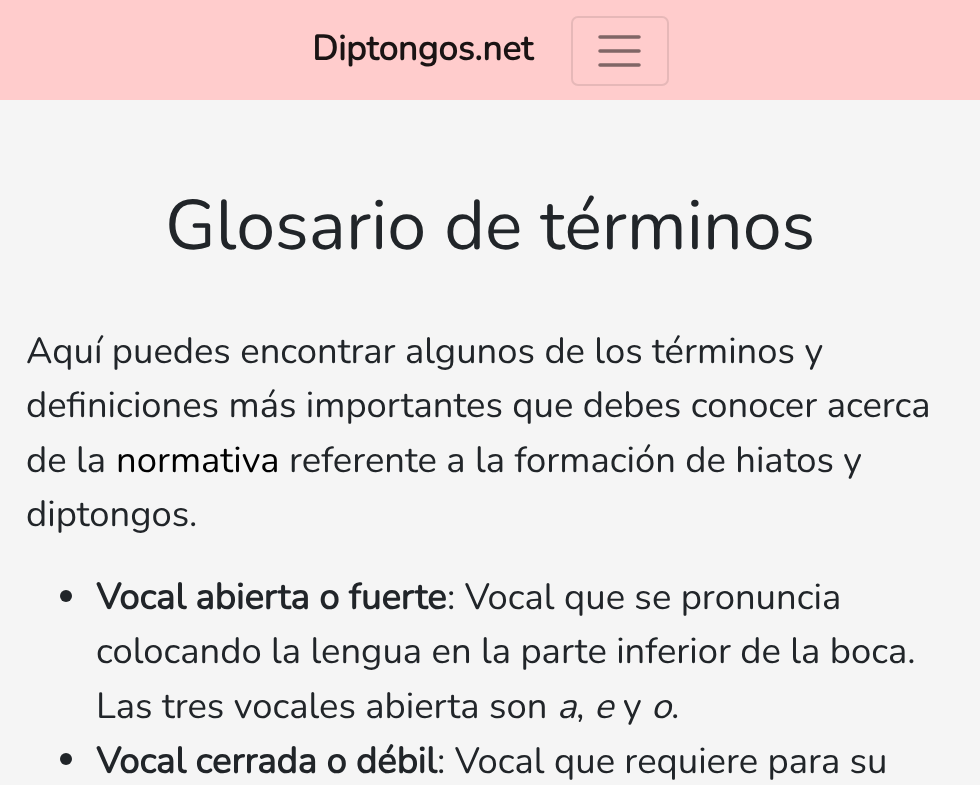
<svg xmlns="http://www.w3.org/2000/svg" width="980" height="785">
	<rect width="100%" height="100%" fill="#F5F5F5" />
	<rect x="0" y="0" width="980" height="100" fill="#FFCCCC" />
	<text x="312" y="60" font-family="Nunito" font-size="35" font-weight="700" fill="#1A1414">Diptongos.net</text>
	<rect x="572" y="17" width="96" height="68" rx="6" fill="none" stroke="#E6B8B8" stroke-width="2" />
	<path d="M600 37H639M600 51H639M600 65H639" fill="none" stroke="#806666" stroke-width="3.5" stroke-linecap="round" />
	<text x="165" y="249" font-family="Nunito" font-size="70" font-weight="200" fill="#212529">Glosario de términos</text>
	<g font-family="Nunito" font-size="36.4" font-weight="200" fill="#212529">
		<text x="26" y="363">Aquí puedes encontrar algunos de los términos y</text>
		<text x="26" y="417">definiciones más importantes que debes conocer acerca</text>
		<text x="26" y="472">de la</text>
	</g>
	<text x="116" y="472" font-family="Nunito" font-size="36.4" font-weight="200" fill="#000000">normativa</text>
	<g font-family="Nunito" font-size="36.4" font-weight="200" fill="#212529">
		<text x="289" y="472">referente a la formación de hiatos y</text>
		<text x="26" y="526">diptongos.</text>
	</g>
	<circle cx="66" cy="596" r="6" fill="#212529" />
	<text x="96" y="609" font-family="Nunito" font-size="36.4" font-weight="700" fill="#212529">Vocal abierta o fuerte</text>
	<g font-family="Nunito" font-size="36.4" font-weight="200" fill="#212529">
		<text x="447" y="609">: Vocal que se pronuncia</text>
		<text x="96" y="663">colocando la lengua en la parte inferior de la boca.</text>
		<text x="96" y="718">Las tres vocales abierta son</text>
	</g>
	<text x="557" y="718" font-family="Nunito" font-size="36.4" font-weight="200" font-style="italic" fill="#212529">a</text>
	<text x="576" y="718" font-family="Nunito" font-size="36.4" font-weight="200" fill="#212529">,</text>
	<text x="594" y="718" font-family="Nunito" font-size="36.4" font-weight="200" font-style="italic" fill="#212529">e</text>
	<text x="623" y="718" font-family="Nunito" font-size="36.4" font-weight="200" fill="#212529">y</text>
	<text x="651" y="718" font-family="Nunito" font-size="36.4" font-weight="200" font-style="italic" fill="#212529">o</text>
	<text x="671" y="718" font-family="Nunito" font-size="36.4" font-weight="200" fill="#212529">.</text>
	<circle cx="66" cy="759" r="6" fill="#212529" />
	<text x="96" y="773" font-family="Nunito" font-size="36.4" font-weight="700" fill="#212529">Vocal cerrada o débil</text>
	<text x="437" y="773" font-family="Nunito" font-size="36.4" font-weight="200" fill="#212529">: Vocal que requiere para su</text>
</svg>
